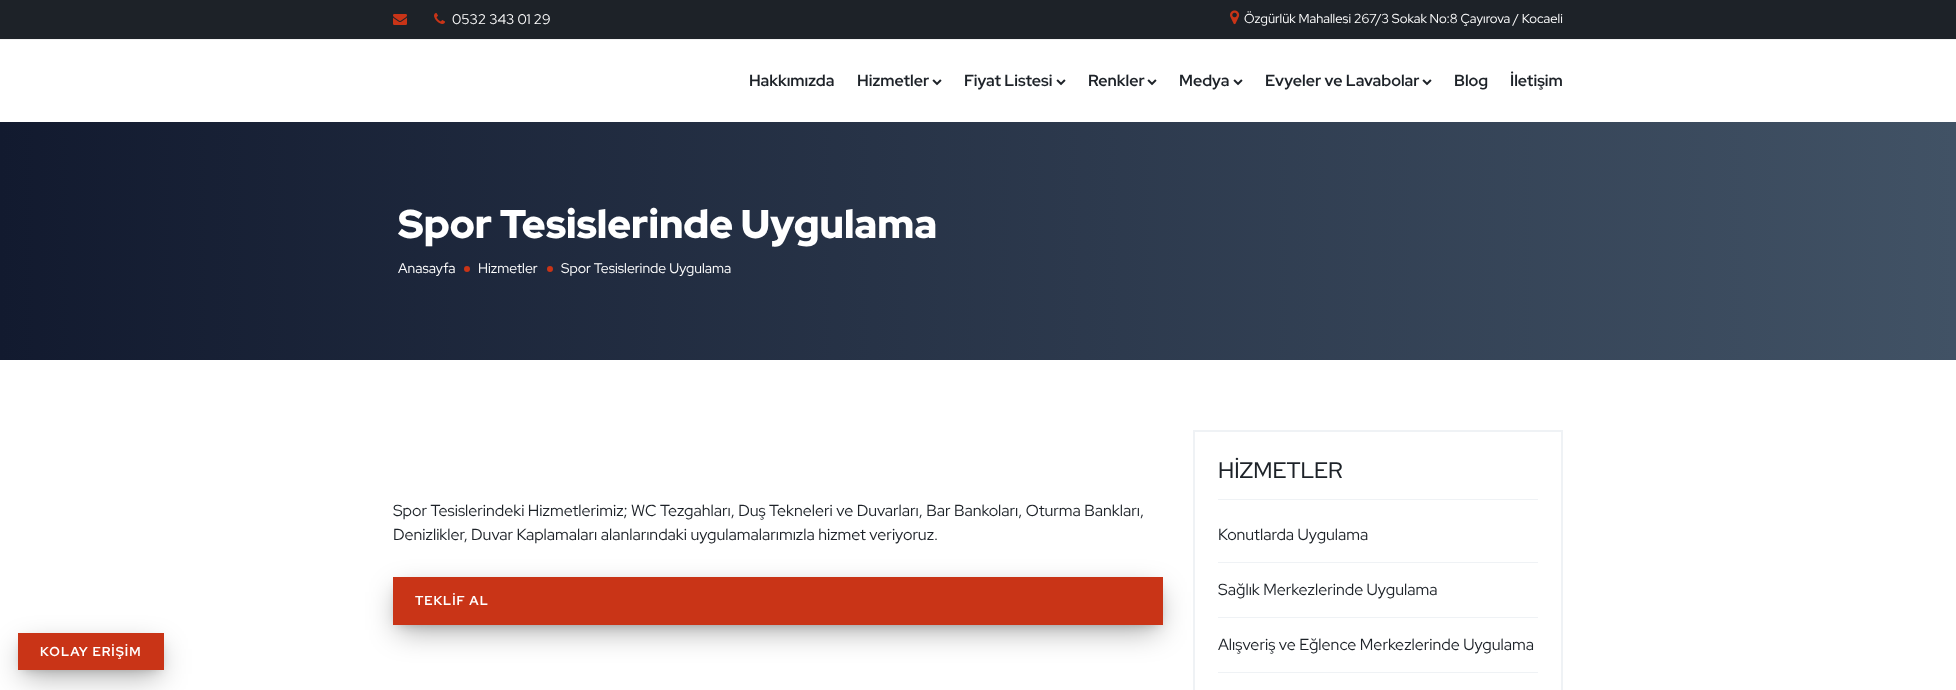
<svg xmlns="http://www.w3.org/2000/svg" width="1956" height="690">
	<defs>
		<linearGradient id="g1" gradientUnits="userSpaceOnUse" x1="0" y1="180" x2="1956" y2="180"><stop offset="0" stop-color="#121A2F" /><stop offset="1" stop-color="#415265" /></linearGradient>
	</defs>
	<rect width="100%" height="100%" fill="#FFFFFF" />
	<rect x="0" y="0" width="1956" height="39" fill="#1D2228" />
	<rect x="0" y="39" width="1956" height="1" fill="#F2F2F2" />
	<image x="393" y="14" width="14" height="11" href="assets/img1.png" />
	<image x="434" y="13" width="11" height="11" href="assets/img2.png" />
	<text x="452" y="24" font-family="Red Hat Display" font-size="14" fill="#FFFFFF">0532 343 01 29</text>
	<image x="1230" y="10" width="10" height="15" href="assets/img3.png" />
	<text x="1244" y="23" font-family="Red Hat Display" font-size="13" fill="#FFFFFF">Özgürlük Mahallesi 267/3 Sokak No:8 Çayırova / Kocaeli</text>
	<g font-family="Red Hat Display" font-size="16" font-weight="700" fill="#1D2228">
		<text x="749" y="86">Hakkımızda</text>
		<text x="857" y="86">Hizmetler</text>
	</g>
	<image x="932" y="79" width="10" height="7" href="assets/img4.png" />
	<text x="964" y="86" font-family="Red Hat Display" font-size="16" font-weight="700" fill="#1D2228">Fiyat Listesi</text>
	<image x="1056" y="79" width="10" height="7" href="assets/img4.png" />
	<text x="1088" y="86" font-family="Red Hat Display" font-size="16" font-weight="700" fill="#1D2228">Renkler</text>
	<image x="1147" y="79" width="10" height="7" href="assets/img4.png" />
	<text x="1179" y="86" font-family="Red Hat Display" font-size="16" font-weight="700" fill="#1D2228">Medya</text>
	<image x="1233" y="79" width="10" height="7" href="assets/img4.png" />
	<text x="1265" y="86" font-family="Red Hat Display" font-size="16" font-weight="700" fill="#1D2228">Evyeler ve Lavabolar</text>
	<image x="1422" y="79" width="10" height="7" href="assets/img4.png" />
	<g font-family="Red Hat Display" font-size="16" font-weight="700" fill="#1D2228">
		<text x="1454" y="86">Blog</text>
		<text x="1510" y="86">İletişim</text>
	</g>
	<rect x="23" y="648" width="136" height="27" fill="#000000" fill-opacity="0.35" filter="blur(15px)" />
	<rect x="23" y="642" width="136" height="27" fill="#000000" fill-opacity="0.24" filter="blur(5.5px)" />
	<rect x="18" y="633" width="146" height="37" fill="#C93417" />
	<text x="40" y="656" font-family="Red Hat Display" font-size="13" font-weight="700" letter-spacing="1" fill="#FFFFFF">KOLAY ERİŞİM</text>
	<rect x="0" y="122" width="1956" height="238" fill="url(#g1)" />
	<text x="398" y="238" font-family="Red Hat Display" font-size="40" font-weight="900" fill="#FFFFFF">Spor Tesislerinde Uygulama</text>
	<text x="398" y="273" font-family="Red Hat Display" font-size="14" fill="#FFFFFF">Anasayfa</text>
	<circle cx="467" cy="269" r="3" fill="#C93417" />
	<text x="478" y="273" font-family="Red Hat Display" font-size="14" fill="#FFFFFF">Hizmetler</text>
	<circle cx="550" cy="269" r="3" fill="#C93417" />
	<text x="561" y="273" font-family="Red Hat Display" font-size="14" fill="#FFFFFF">Spor Tesislerinde Uygulama</text>
	<g font-family="Red Hat Display" font-size="16" fill="#1D2228">
		<text x="393" y="516">Spor Tesislerindeki Hizmetlerimiz; WC Tezgahları, Duş Tekneleri ve Duvarları, Bar Bankoları, Oturma Bankları,</text>
		<text x="393" y="540">Denizlikler, Duvar Kaplamaları alanlarındaki uygulamalarımızla hizmet veriyoruz.</text>
	</g>
	<rect x="398" y="592" width="760" height="38" fill="#000000" fill-opacity="0.35" filter="blur(15px)" />
	<rect x="398" y="586" width="760" height="38" fill="#000000" fill-opacity="0.24" filter="blur(5.5px)" />
	<rect x="393" y="577" width="770" height="48" fill="#C93417" />
	<text x="415" y="605" font-family="Red Hat Display" font-size="13" font-weight="700" letter-spacing="1" fill="#FFFFFF">TEKLİF AL</text>
	<rect x="1194" y="431" width="368" height="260" fill="none" stroke="#EFF2F5" stroke-width="2" />
	<rect x="1218" y="499" width="320" height="1" fill="#EFF2F5" />
	<text x="1218" y="478" font-family="Red Hat Display" font-size="22.5" font-weight="500" fill="#1D2228">HİZMETLER</text>
	<rect x="1218" y="562" width="320" height="1" fill="#EFF2F5" />
	<text x="1218" y="540" font-family="Red Hat Display" font-size="16" fill="#1D2228">Konutlarda Uygulama</text>
	<rect x="1218" y="617" width="320" height="1" fill="#EFF2F5" />
	<text x="1218" y="595" font-family="Red Hat Display" font-size="16" fill="#1D2228">Sağlık Merkezlerinde Uygulama</text>
	<rect x="1218" y="672" width="320" height="1" fill="#EFF2F5" />
	<text x="1218" y="650" font-family="Red Hat Display" font-size="16" fill="#1D2228">Alışveriş ve Eğlence Merkezlerinde Uygulama</text>
</svg>
